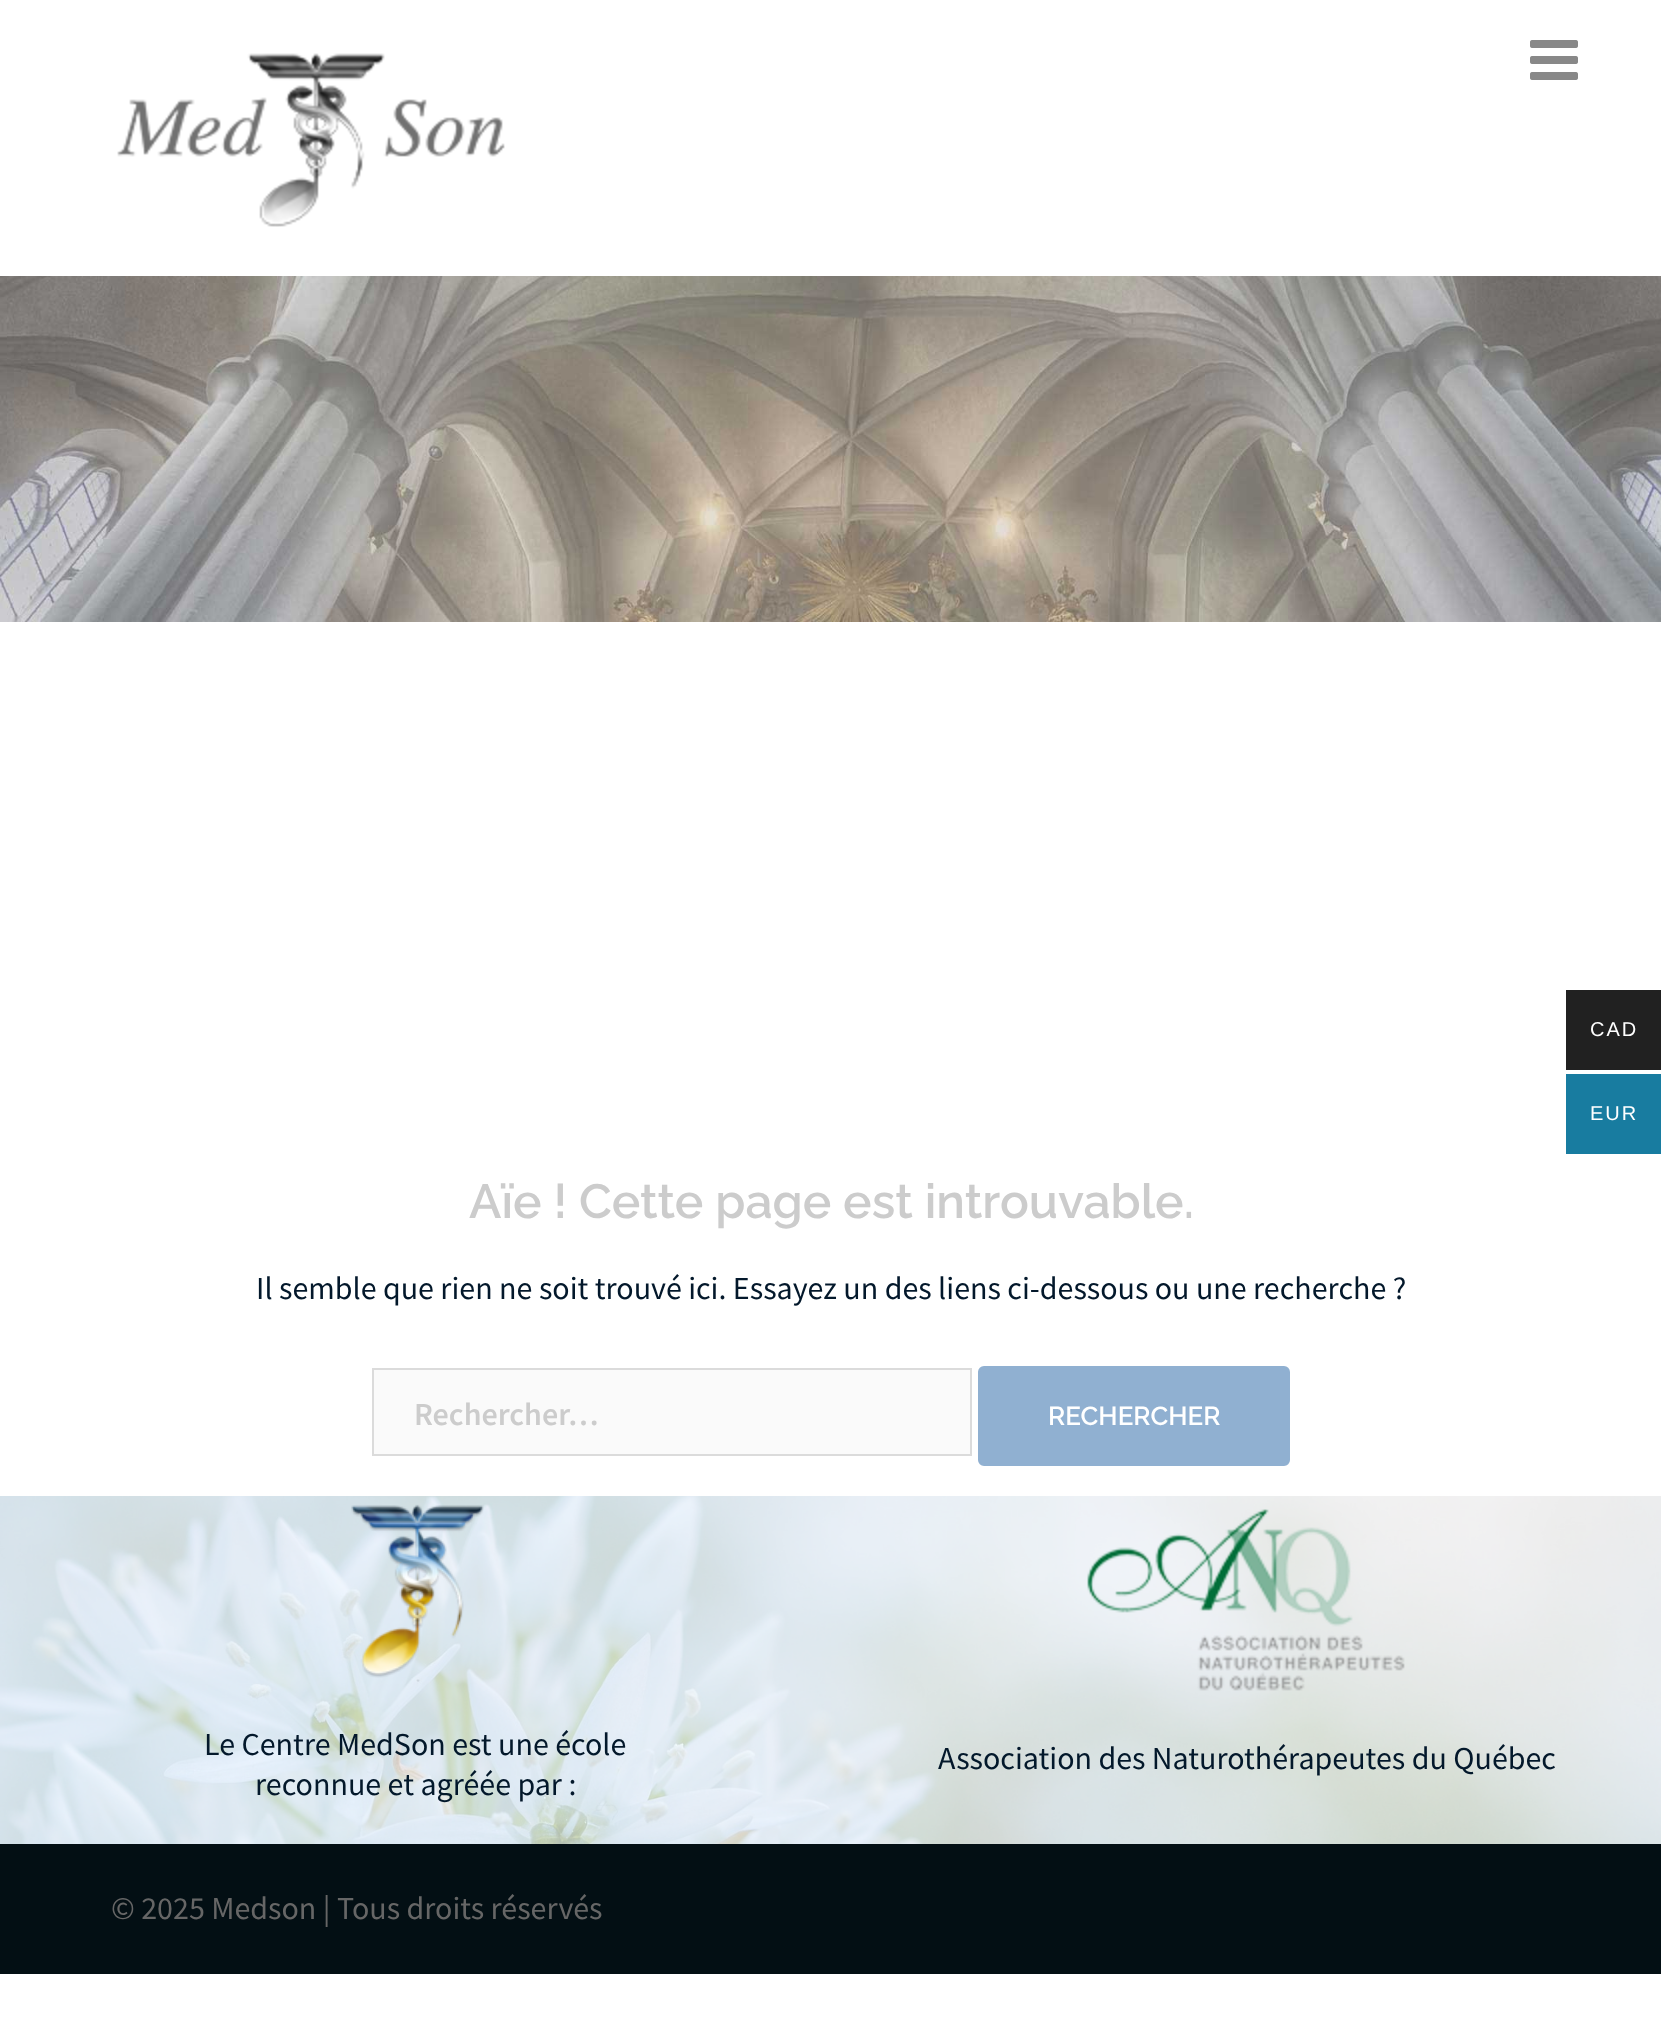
<svg xmlns="http://www.w3.org/2000/svg" width="1661" height="2039">
	<rect width="100%" height="100%" fill="#FFFFFF" />
	<rect x="1566" y="990" width="95" height="80" fill="#212121" />
	<text x="1590" y="1036" font-family="Liberation Sans" font-size="20" letter-spacing="2" fill="#FFFFFF">CAD</text>
	<rect x="1566" y="1074" width="95" height="80" fill="#187CA0" />
	<text x="1590" y="1120" font-family="Liberation Sans" font-size="20" letter-spacing="2" fill="#FFFFFF">EUR</text>
	<image x="117" y="53" width="388" height="174" href="assets/img1.png" />
	<image x="1530" y="40" width="48" height="40" href="assets/img2.png" />
	<image x="0" y="276" width="1661" height="346" href="assets/img3.png" />
	<text x="469" y="1218" font-family="Raleway" font-size="48" font-weight="600" fill="#CCCCCC">Aïe ! Cette page est introuvable.</text>
	<text x="256" y="1299" font-family="Source Sans Pro" font-size="32" fill="#03182B">Il semble que rien ne soit trouvé ici. Essayez un des liens ci-dessous ou une recherche ?</text>
	<rect x="373" y="1369" width="598" height="86" fill="#FAFAFA" stroke="#DBDBDB" stroke-width="2" />
	<text x="414" y="1425" font-family="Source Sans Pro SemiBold" font-size="32" font-weight="600" fill="#CCCCCC">Rechercher…</text>
	<rect x="979" y="1367" width="310" height="98" rx="5" fill="#90B0D1" stroke="#90B0D1" stroke-width="2" />
	<text x="1048" y="1425" font-family="Raleway" font-size="26" font-weight="600" fill="#FFFFFF">RECHERCHER</text>
	<image x="0" y="1496" width="1661" height="348" href="assets/img4.png" />
	<image x="351" y="1504" width="133" height="174" href="assets/img5.png" />
	<g font-family="Source Sans Pro" font-size="32" fill="#03182B">
		<text x="204" y="1755">Le Centre MedSon est une école</text>
		<text x="255" y="1795">reconnue et agréée par :</text>
	</g>
	<image x="1087" y="1509" width="318" height="182" href="assets/img6.png" />
	<text x="938" y="1769" font-family="Source Sans Pro" font-size="32" fill="#03182B">Association des Naturothérapeutes du Québec</text>
	<rect x="0" y="1844" width="1661" height="130" fill="#030F14" />
	<text x="111" y="1919" font-family="Source Sans Pro" font-size="32" fill="#666666">© 2025 Medson | Tous droits réservés</text>
</svg>
